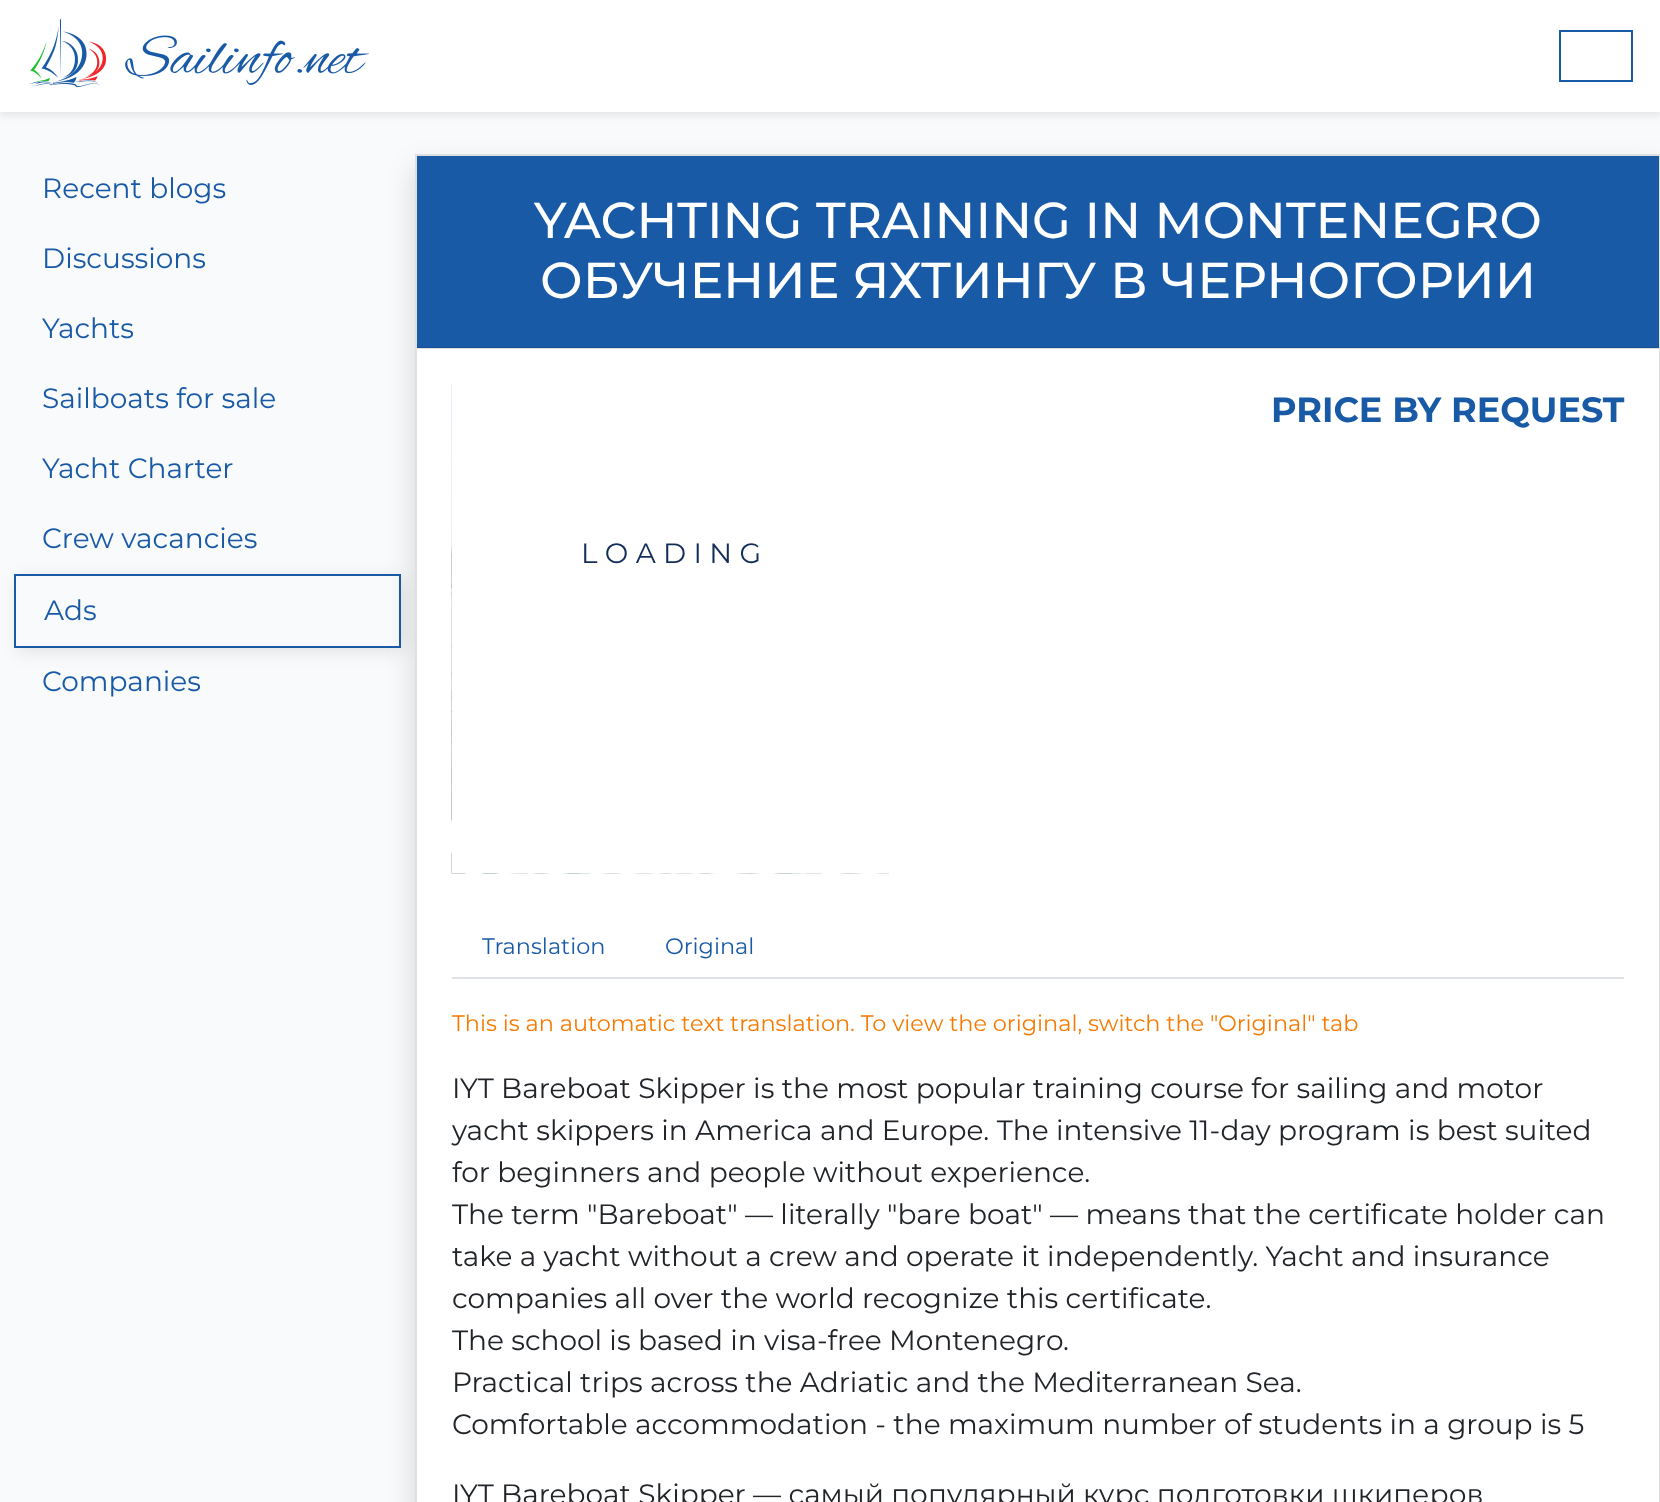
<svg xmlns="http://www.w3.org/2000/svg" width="1660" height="1502">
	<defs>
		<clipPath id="clip1"><path d="M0 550H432V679H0ZM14 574H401V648H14Z" clip-rule="evenodd" /></clipPath>
	</defs>
	<rect width="100%" height="100%" fill="#F8FAFC" />
	<rect x="0" y="4" width="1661" height="112" fill="#000000" fill-opacity="0.08" filter="blur(3.5px)" />
	<rect x="0" y="0" width="1660" height="112" fill="#FFFFFF" />
	<image x="29" y="19" width="340" height="69" href="assets/img1.png" />
	<rect x="1560" y="31" width="72" height="50" fill="none" stroke="#195AA7" stroke-width="2" />
	<g font-family="Montserrat" font-size="28" fill="#195AA7">
		<text x="42" y="198">Recent blogs</text>
		<text x="42" y="268">Discussions</text>
		<text x="42" y="338">Yachts</text>
		<text x="42" y="408">Sailboats for sale</text>
		<text x="42" y="478">Yacht Charter</text>
		<text x="42" y="548">Crew vacancies</text>
	</g>
	<g clip-path="url(#clip1)">
		<rect x="18" y="578" width="386" height="73" fill="#000000" fill-opacity="0.1" filter="blur(9px)" />
	</g>
	<rect x="15" y="575" width="385" height="72" fill="none" stroke="#195AA7" stroke-width="2" />
	<g font-family="Montserrat" font-size="28" fill="#195AA7">
		<text x="44" y="620">Ads</text>
		<text x="42" y="691">Companies</text>
	</g>
	<rect x="415" y="168" width="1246" height="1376" fill="#000000" fill-opacity="0.15" filter="blur(14px)" />
	<rect x="417" y="349" width="1242" height="1153" fill="#FFFFFF" />
	<rect x="417" y="348" width="1242" height="1" fill="#E0E0E0" />
	<rect x="416" y="155" width="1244" height="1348" fill="none" stroke="#DFDFDF" stroke-width="2" />
	<rect x="417" y="156" width="1242" height="191" fill="#195AA7" />
	<rect x="417" y="347" width="1242" height="1" fill="#164F93" />
	<g font-family="Montserrat" font-size="50.4" font-weight="500" fill="#FFFFFF">
		<text x="534" y="238">YACHTING TRAINING IN MONTENEGRO</text>
		<text x="540" y="298">ОБУЧЕНИЕ ЯХТИНГУ В ЧЕРНОГОРИИ</text>
	</g>
	<text x="1271" y="422" font-family="Montserrat" font-size="35" font-weight="700" fill="#195AA7">PRICE BY REQUEST</text>
	<image x="451" y="383" width="1" height="438" href="assets/img2.png" />
	<image x="451" y="820" width="438" height="54" href="assets/img3.png" />
	<rect x="452" y="847" width="437" height="26" fill="#FFFFFF" />
	<text x="581" y="563" font-family="Montserrat" font-size="28" fill="#132D5A">L O A D I N G</text>
	<rect x="452" y="977" width="1172" height="2" fill="#DEE2E6" />
	<g font-family="Montserrat" font-size="22.4" fill="#195AA7">
		<text x="482" y="954">Translation</text>
		<text x="665" y="954">Original</text>
	</g>
	<text x="452" y="1031" font-family="Montserrat" font-size="22.4" fill="#F67A02">This is an automatic text translation. To view the original, switch the "Original" tab</text>
	<g font-family="Montserrat" font-size="28" fill="#212529">
		<text x="452" y="1098">IYT Bareboat Skipper is the most popular training course for sailing and motor</text>
		<text x="452" y="1140">yacht skippers in America and Europe. The intensive 11-day program is best suited</text>
		<text x="452" y="1182">for beginners and people without experience.</text>
		<text x="452" y="1224">The term "Bareboat" — literally "bare boat" — means that the certificate holder can</text>
		<text x="452" y="1266">take a yacht without a crew and operate it independently. Yacht and insurance</text>
		<text x="452" y="1308">companies all over the world recognize this certificate.</text>
		<text x="452" y="1350">The school is based in visa-free Montenegro.</text>
		<text x="452" y="1392">Practical trips across the Adriatic and the Mediterranean Sea.</text>
		<text x="452" y="1434">Comfortable accommodation - the maximum number of students in a group is 5</text>
		<text x="452" y="1504">IYT Bareboat Skipper — самый популярный курс подготовки шкиперов</text>
	</g>
</svg>
